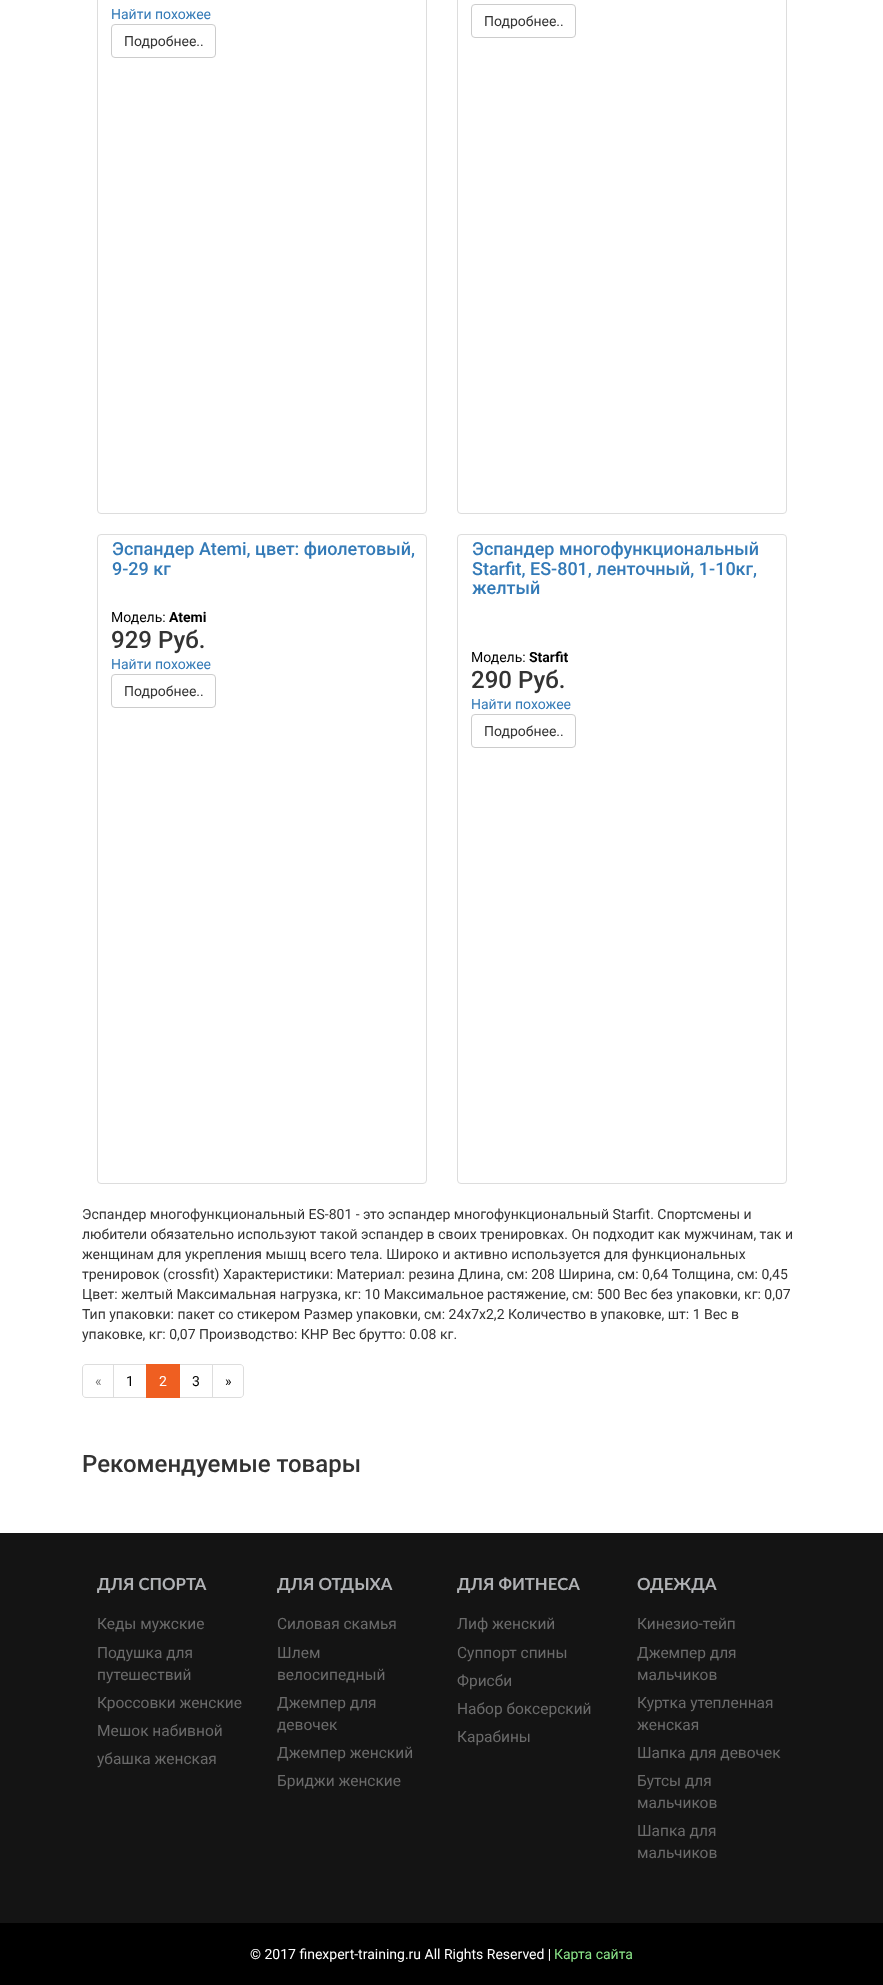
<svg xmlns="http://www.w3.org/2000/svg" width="883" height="1985">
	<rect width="100%" height="100%" fill="#FFFFFF" />
	<rect x="97.5" y="-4.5" width="329" height="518" rx="3.5" fill="none" stroke="#DDDDDD" />
	<text x="111" y="19" font-family="Roboto" font-size="14" fill="#337AB7">Найти похожее</text>
	<rect x="111.5" y="24.5" width="104" height="33" rx="3.5" fill="none" stroke="#CCCCCC" />
	<text x="124" y="46" font-family="Roboto" font-size="14" fill="#333333">Подробнее..</text>
	<rect x="457.5" y="-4.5" width="329" height="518" rx="3.5" fill="none" stroke="#DDDDDD" />
	<rect x="471.5" y="4.5" width="104" height="33" rx="3.5" fill="none" stroke="#CCCCCC" />
	<text x="484" y="26" font-family="Roboto" font-size="14" fill="#333333">Подробнее..</text>
	<rect x="97.5" y="534.5" width="329" height="649" rx="3.5" fill="none" stroke="#DDDDDD" />
	<g font-family="Roboto" font-size="18" font-weight="500" fill="#337AB7">
		<text x="112" y="555">Эспандер Atemi, цвет: фиолетовый,</text>
		<text x="112" y="575">9-29 кг</text>
	</g>
	<text x="111" y="622" font-family="Roboto" font-size="14" fill="#000000">Модель:</text>
	<text x="169" y="622" font-family="Roboto" font-size="14" font-weight="700" fill="#000000">Atemi</text>
	<text x="111" y="648" font-family="Roboto" font-size="24" font-weight="500" fill="#333333">929 Руб.</text>
	<text x="111" y="669" font-family="Roboto" font-size="14" fill="#337AB7">Найти похожее</text>
	<rect x="111.5" y="674.5" width="104" height="33" rx="3.5" fill="none" stroke="#CCCCCC" />
	<text x="124" y="696" font-family="Roboto" font-size="14" fill="#333333">Подробнее..</text>
	<rect x="457.5" y="534.5" width="329" height="649" rx="3.5" fill="none" stroke="#DDDDDD" />
	<g font-family="Roboto" font-size="18" font-weight="500" fill="#337AB7">
		<text x="472" y="555">Эспандер многофункциональный</text>
		<text x="472" y="575">Starfit, ES-801, ленточный, 1-10кг,</text>
		<text x="472" y="594">желтый</text>
	</g>
	<text x="471" y="662" font-family="Roboto" font-size="14" fill="#000000">Модель:</text>
	<text x="529" y="662" font-family="Roboto" font-size="14" font-weight="700" fill="#000000">Starfit</text>
	<text x="471" y="688" font-family="Roboto" font-size="24" font-weight="500" fill="#333333">290 Руб.</text>
	<text x="471" y="709" font-family="Roboto" font-size="14" fill="#337AB7">Найти похожее</text>
	<rect x="471.5" y="714.5" width="104" height="33" rx="3.5" fill="none" stroke="#CCCCCC" />
	<g font-family="Roboto" font-size="14" fill="#333333">
		<text x="484" y="736">Подробнее..</text>
		<text x="82" y="1219">Эспандер многофункциональный ES-801 - это эспандер многофункциональный Starfit. Спортсмены и</text>
		<text x="82" y="1239">любители обязательно используют такой эспандер в своих тренировках. Он подходит как мужчинам, так и</text>
		<text x="82" y="1259">женщинам для укрепления мышц всего тела. Широко и активно используется для функциональных</text>
		<text x="82" y="1279">тренировок (crossfit) Характеристики: Материал: резина Длина, см: 208 Ширина, см: 0,64 Толщина, см: 0,45</text>
		<text x="82" y="1299">Цвет: желтый Максимальная нагрузка, кг: 10 Максимальное растяжение, см: 500 Вес без упаковки, кг: 0,07</text>
		<text x="82" y="1319">Тип упаковки: пакет со стикером Размер упаковки, см: 24х7х2,2 Количество в упаковке, шт: 1 Вес в</text>
		<text x="82" y="1339">упаковке, кг: 0,07 Производство: КНР Вес брутто: 0.08 кг.</text>
	</g>
	<path d="M86 1364.5H113.5V1397.5H86C84 1397.5 82.5 1396 82.5 1394V1368C82.5 1366 84 1364.5 86 1364.5Z" fill="none" stroke="#DDDDDD" />
	<text x="95" y="1386" font-family="Roboto" font-size="14" fill="#777777">«</text>
	<rect x="113.5" y="1364.5" width="33" height="33" fill="none" stroke="#DDDDDD" />
	<text x="126" y="1386" font-family="Roboto" font-size="14" fill="#000000">1</text>
	<rect x="179.5" y="1364.5" width="33" height="33" fill="none" stroke="#DDDDDD" />
	<rect x="146" y="1364" width="34" height="34" fill="#EF5F21" />
	<text x="159" y="1386" font-family="Roboto" font-size="14" fill="#FFFFFF">2</text>
	<text x="192" y="1386" font-family="Roboto" font-size="14" fill="#000000">3</text>
	<path d="M212.5 1364.5H240C242 1364.5 243.5 1366 243.5 1368V1394C243.5 1396 242 1397.5 240 1397.5H212.5Z" fill="#FFFFFF" stroke="#DDDDDD" />
	<text x="225" y="1386" font-family="Roboto" font-size="14" fill="#000000">»</text>
	<text x="82" y="1472" font-family="Roboto" font-size="24" font-weight="500" fill="#333333">Рекомендуемые товары</text>
	<rect x="0" y="1533" width="883" height="390" fill="#141414" />
	<text x="97" y="1590" font-family="Lato" font-size="16.75" font-weight="700" fill="#B0B2B5">ДЛЯ СПОРТА</text>
	<g font-family="Roboto" font-size="15.5" fill="#6B6B6B">
		<text x="97" y="1629">Кеды мужские</text>
		<text x="97" y="1658">Подушка для</text>
		<text x="97" y="1680">путешествий</text>
		<text x="97" y="1708">Кроссовки женские</text>
		<text x="97" y="1736">Мешок набивной</text>
		<text x="97" y="1764">убашка женская</text>
	</g>
	<text x="277" y="1590" font-family="Lato" font-size="16.75" font-weight="700" fill="#B0B2B5">ДЛЯ ОТДЫХА</text>
	<g font-family="Roboto" font-size="15.5" fill="#6B6B6B">
		<text x="277" y="1629">Силовая скамья</text>
		<text x="277" y="1658">Шлем</text>
		<text x="277" y="1680">велосипедный</text>
		<text x="277" y="1708">Джемпер для</text>
		<text x="277" y="1730">девочек</text>
		<text x="277" y="1758">Джемпер женский</text>
		<text x="277" y="1786">Бриджи женские</text>
	</g>
	<text x="457" y="1590" font-family="Lato" font-size="16.75" font-weight="700" fill="#B0B2B5">ДЛЯ ФИТНЕСА</text>
	<g font-family="Roboto" font-size="15.5" fill="#6B6B6B">
		<text x="457" y="1629">Лиф женский</text>
		<text x="457" y="1658">Суппорт спины</text>
		<text x="457" y="1686">Фрисби</text>
		<text x="457" y="1714">Набор боксерский</text>
		<text x="457" y="1742">Карабины</text>
	</g>
	<text x="637" y="1590" font-family="Lato" font-size="16.75" font-weight="700" fill="#B0B2B5">ОДЕЖДА</text>
	<g font-family="Roboto" font-size="15.5" fill="#6B6B6B">
		<text x="637" y="1629">Кинезио-тейп</text>
		<text x="637" y="1658">Джемпер для</text>
		<text x="637" y="1680">мальчиков</text>
		<text x="637" y="1708">Куртка утепленная</text>
		<text x="637" y="1730">женская</text>
		<text x="637" y="1758">Шапка для девочек</text>
		<text x="637" y="1786">Бутсы для</text>
		<text x="637" y="1808">мальчиков</text>
		<text x="637" y="1836">Шапка для</text>
		<text x="637" y="1858">мальчиков</text>
	</g>
	<rect x="0" y="1923" width="883" height="62" fill="#000000" />
	<text x="250" y="1959" font-family="Roboto" font-size="14" fill="#FFFFFF">© 2017 finexpert-training.ru All Rights Reserved |</text>
	<text x="554" y="1959" font-family="Roboto" font-size="14" fill="#8CE78A">Карта сайта</text>
</svg>
